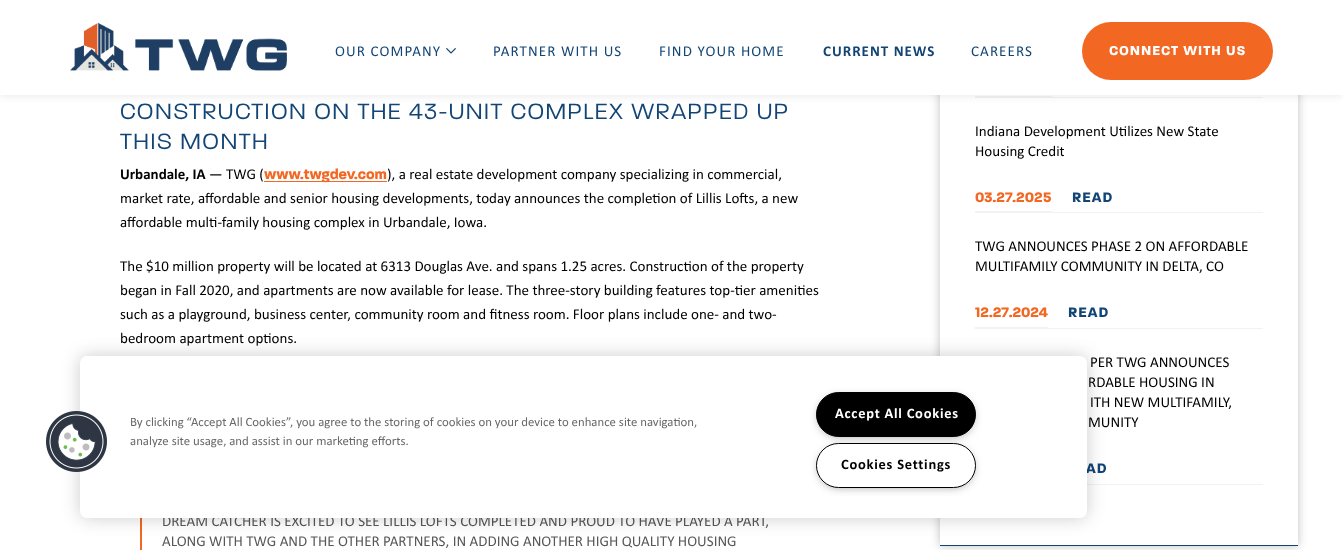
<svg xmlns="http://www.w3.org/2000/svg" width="1343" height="550">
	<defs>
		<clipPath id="clip1"><path d="M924 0H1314V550H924ZM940-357H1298V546H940Z" clip-rule="evenodd" /></clipPath>
	</defs>
	<rect width="100%" height="100%" fill="#FFFFFF" />
	<g clip-path="url(#clip1)">
		<rect x="940" y="-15" width="358" height="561" fill="#000000" fill-opacity="0.25" filter="blur(5px)" />
	</g>
	<rect x="975" y="97" width="288" height="1" fill="#F2F2F2" />
	<rect x="975" y="96" width="77" height="1" fill="#F2F2F2" />
	<rect x="0" y="0" width="1343" height="95" fill="#000000" fill-opacity="0.1" filter="blur(5px)" />
	<rect x="0" y="0" width="1343" height="95" fill="#FFFFFF" />
	<image x="70" y="22" width="217" height="49" href="assets/img1.png" />
	<text x="335" y="56" font-family="Calibri" font-size="15" letter-spacing="1.1" fill="#124575">OUR COMPANY</text>
	<image x="446" y="48" width="10" height="6" href="assets/img2.png" />
	<g font-family="Calibri" font-size="15" letter-spacing="1.1" fill="#124575">
		<text x="493" y="56">PARTNER WITH US</text>
		<text x="659" y="56">FIND YOUR HOME</text>
	</g>
	<text x="823" y="56" font-family="Calibri" font-size="15" font-weight="700" letter-spacing="1" fill="#124575">CURRENT NEWS</text>
	<text x="971" y="56" font-family="Calibri" font-size="15" letter-spacing="1.1" fill="#124575">CAREERS</text>
	<rect x="1082" y="22" width="191" height="58" rx="29" fill="#F26722" />
	<text x="1109" y="55" font-family="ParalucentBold" font-size="14" font-weight="700" letter-spacing="1" fill="#FFFFFF">CONNECT WITH US</text>
	<g font-family="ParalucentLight" font-size="24" font-weight="300" letter-spacing="1.5" fill="#124575">
		<text x="120" y="119">CONSTRUCTION ON THE 43-UNIT COMPLEX WRAPPED UP</text>
		<text x="120" y="149">THIS MONTH</text>
	</g>
	<text x="120" y="179" font-family="Calibri" font-size="15" font-weight="700" fill="#000000">Urbandale, IA</text>
	<text x="209" y="179" font-family="Calibri" font-size="15" fill="#000000">— TWG (</text>
	<rect x="264" y="181" width="123" height="1" fill="#F26722" />
	<text x="264" y="179" font-family="ParalucentBold" font-size="15" font-weight="700" fill="#F26722">www.twgdev.com</text>
	<g font-family="Calibri" font-size="15" fill="#000000">
		<text x="387" y="179">), a real estate development company specializing in commercial,</text>
		<text x="120" y="203">market rate, affordable and senior housing developments, today announces the completion of Lillis Lofts, a new</text>
		<text x="120" y="227">affordable multi-family housing complex in Urbandale, Iowa.</text>
		<text x="120" y="271">The $10 million property will be located at 6313 Douglas Ave. and spans 1.25 acres. Construction of the property</text>
		<text x="120" y="295">began in Fall 2020, and apartments are now available for lease. The three-story building features top-tier amenities</text>
		<text x="120" y="319">such as a playground, business center, community room and fitness room. Floor plans include one- and two-</text>
		<text x="120" y="343">bedroom apartment options.</text>
	</g>
	<rect x="140" y="518" width="2" height="32" fill="#F26722" />
	<g font-family="Calibri" font-size="15" fill="#575757">
		<text x="162" y="526">DREAM CATCHER IS EXCITED TO SEE LILLIS LOFTS COMPLETED AND PROUD TO HAVE PLAYED A PART,</text>
		<text x="162" y="546">ALONG WITH TWG AND THE OTHER PARTNERS, IN ADDING ANOTHER HIGH QUALITY HOUSING</text>
	</g>
	<rect x="940" y="545" width="358" height="1" fill="#124575" />
	<g font-family="Calibri" font-size="15" fill="#000000">
		<text x="975" y="136">Indiana Development Utilizes New State</text>
		<text x="975" y="156">Housing Credit</text>
	</g>
	<rect x="975" y="212" width="288" height="1" fill="#F2F2F2" />
	<text x="975" y="202" font-family="ParalucentBold" font-size="15" font-weight="700" fill="#F26722">03.27.2025</text>
	<rect x="975" y="211" width="77" height="1" fill="#F2F2F2" />
	<text x="1072" y="202" font-family="ParalucentBold" font-size="15" font-weight="700" letter-spacing="1" fill="#124575">READ</text>
	<g font-family="Calibri" font-size="15" fill="#000000">
		<text x="975" y="251">TWG ANNOUNCES PHASE 2 ON AFFORDABLE</text>
		<text x="975" y="271">MULTIFAMILY COMMUNITY IN DELTA, CO</text>
	</g>
	<rect x="975" y="328" width="288" height="1" fill="#F2F2F2" />
	<text x="975" y="317" font-family="ParalucentBold" font-size="15" font-weight="700" fill="#F26722">12.27.2024</text>
	<rect x="975" y="327" width="73" height="1" fill="#F2F2F2" />
	<text x="1068" y="317" font-family="ParalucentBold" font-size="15" font-weight="700" letter-spacing="1" fill="#124575">READ</text>
	<g font-family="Calibri" font-size="15" fill="#000000">
		<text x="1090" y="367">PER TWG ANNOUNCES</text>
		<text x="1088" y="387">RDABLE HOUSING IN</text>
		<text x="1090" y="407">ITH NEW MULTIFAMILY,</text>
		<text x="1088" y="427">MUNITY</text>
	</g>
	<rect x="1087" y="484" width="176" height="1" fill="#F2F2F2" />
	<text x="1086" y="473" font-family="ParalucentBold" font-size="15" font-weight="700" letter-spacing="1" fill="#124575">AD</text>
	<rect x="80" y="356" width="1007" height="162" rx="7" fill="#000000" fill-opacity="0.2" filter="blur(9px)" />
	<rect x="80" y="356" width="1007" height="162" rx="7" fill="#FFFFFF" />
	<image x="46" y="411" width="61" height="61" href="assets/img3.png" />
	<g font-family="Calibri" font-size="12.8" fill="#696969">
		<text x="130" y="426">By clicking “Accept All Cookies”, you agree to the storing of cookies on your device to enhance site navigation,</text>
		<text x="130" y="445">analyze site usage, and assist in our marketing efforts.</text>
	</g>
	<rect x="819" y="397" width="154" height="39" rx="19.5" fill="#999999" filter="blur(5px)" />
	<rect x="816.5" y="392.5" width="159" height="44" rx="22" fill="#000000" stroke="#000000" />
	<text x="835" y="418" font-family="Calibri" font-size="14.5" font-weight="700" letter-spacing="0.75" fill="#FFFFFF">Accept All Cookies</text>
	<rect x="819" y="448" width="154" height="39" rx="19.5" fill="#999999" filter="blur(5px)" />
	<rect x="816.5" y="443.5" width="159" height="44" rx="22" fill="#FFFFFF" stroke="#000000" />
	<text x="841" y="469" font-family="Calibri" font-size="14.5" font-weight="700" letter-spacing="0.75" fill="#000000">Cookies Settings</text>
</svg>
